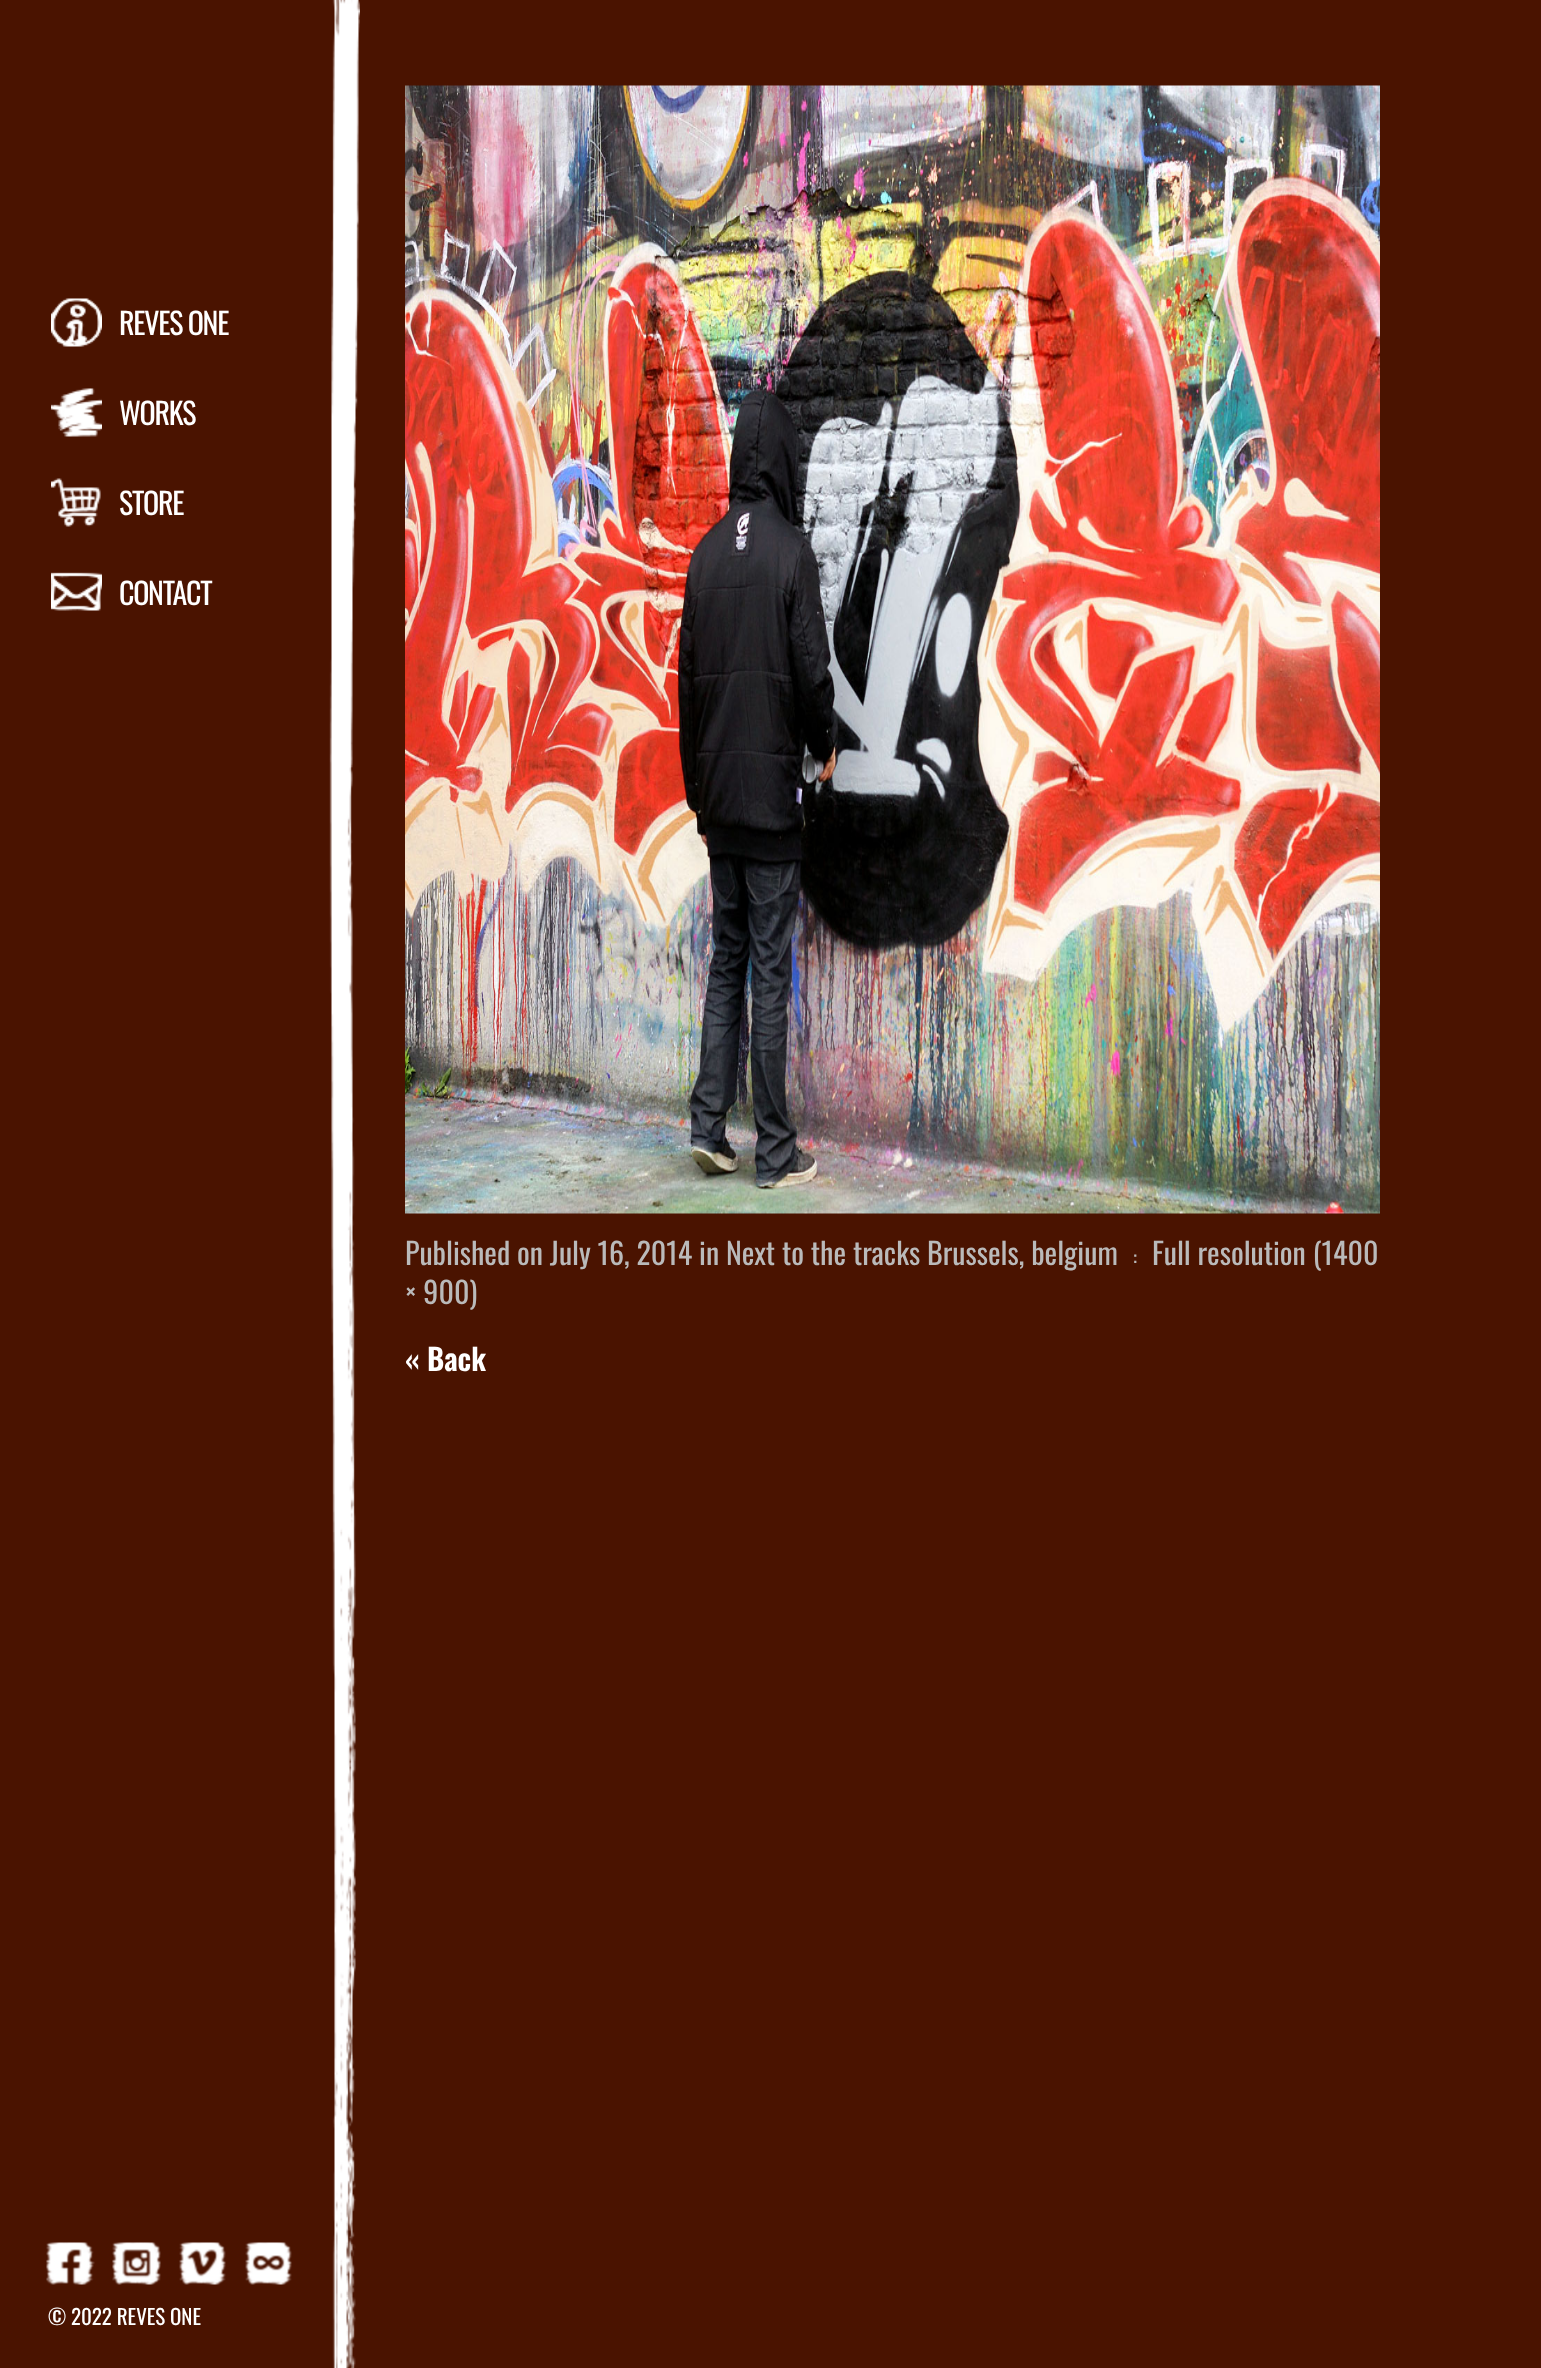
<svg xmlns="http://www.w3.org/2000/svg" width="1541" height="2368">
	<rect width="100%" height="100%" fill="#4A1300" />
	<image x="329" y="0" width="31" height="2368" href="assets/img1.png" />
	<image x="51" y="298" width="51" height="49" href="assets/img2.png" />
	<text x="119" y="335" font-family="Oswald" font-size="30" letter-spacing="-1.25" fill="#FFFFFF">REVES ONE</text>
	<image x="51" y="388" width="51" height="49" href="assets/img3.png" />
	<text x="119" y="425" font-family="Oswald" font-size="30" letter-spacing="-1.25" fill="#FFFFFF">WORKS</text>
	<image x="51" y="478" width="50" height="49" href="assets/img4.png" />
	<text x="119" y="515" font-family="Oswald" font-size="30" letter-spacing="-1.25" fill="#FFFFFF">STORE</text>
	<image x="51" y="572" width="51" height="39" href="assets/img5.png" />
	<text x="119" y="605" font-family="Oswald" font-size="30" letter-spacing="-1.25" fill="#FFFFFF">CONTACT</text>
	<image x="46" y="2242" width="49" height="43" href="assets/img6.png" />
	<image x="112" y="2242" width="49" height="43" href="assets/img7.png" />
	<image x="179" y="2242" width="47" height="43" href="assets/img8.png" />
	<image x="245" y="2242" width="47" height="43" href="assets/img9.png" />
	<text x="48" y="2325" font-family="Oswald" font-size="21" fill="#FFFFFF">© 2022 REVES ONE</text>
	<image x="405" y="85" width="975" height="1129" href="assets/img10.png" />
	<text x="405" y="1265" font-family="Oswald" font-size="30" fill="#BABABA">Published on July 16, 2014 in Next to the tracks Brussels, belgium</text>
	<text x="1133" y="1265" font-family="Oswald" font-size="20" fill="#BABABA">:</text>
	<g font-family="Oswald" font-size="30" fill="#BABABA">
		<text x="1152" y="1265">Full resolution (1400</text>
		<text x="405" y="1304">× 900)</text>
	</g>
	<text x="405" y="1371" font-family="Oswald" font-size="30" font-weight="600" fill="#FFFFFF">« Back</text>
</svg>
